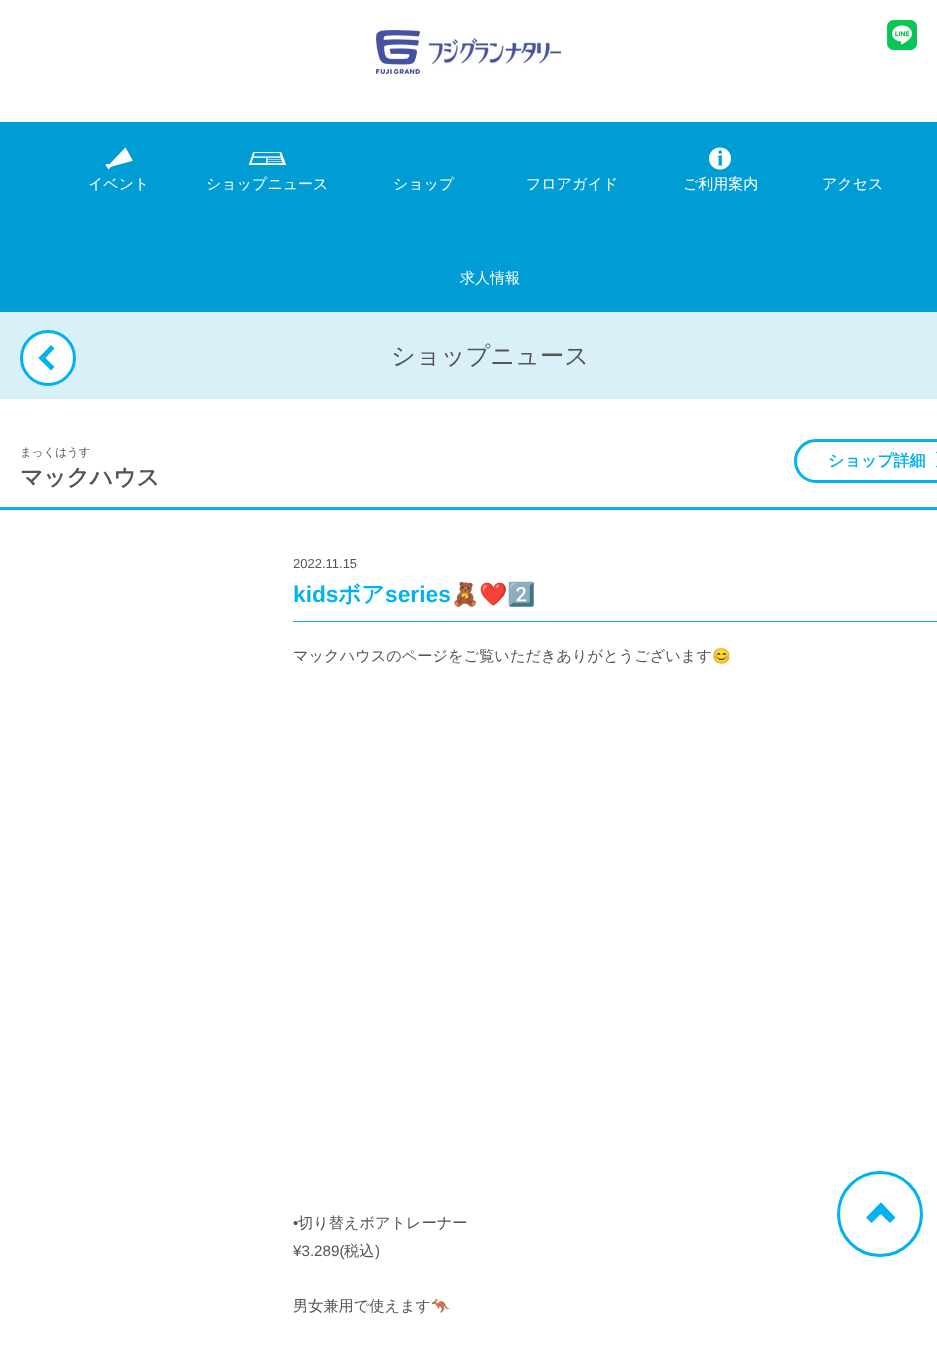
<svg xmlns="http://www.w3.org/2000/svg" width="937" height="1351">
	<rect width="100%" height="100%" fill="#FFFFFF" />
	<image x="376" y="30" width="186" height="44" href="assets/img1.png" />
	<image x="887" y="20" width="30" height="30" href="assets/img2.png" />
	<rect x="0" y="122" width="937" height="190" fill="#009CD4" />
	<image x="105" y="147" width="28" height="23" href="assets/img3.png" />
	<text x="88" y="189" font-family="WenQuanYi Zen Hei" font-size="15" font-weight="500" fill="#FFFFFF">イベント</text>
	<image x="248" y="152" width="39" height="13" href="assets/img4.png" />
	<g font-family="WenQuanYi Zen Hei" font-size="15" font-weight="500" fill="#FFFFFF">
		<text x="206" y="189">ショップニュース</text>
		<text x="393" y="189">ショップ</text>
		<text x="526" y="189">フロアガイド</text>
	</g>
	<image x="709" y="147" width="22" height="23" href="assets/img5.png" />
	<g font-family="WenQuanYi Zen Hei" font-size="15" font-weight="500" fill="#FFFFFF">
		<text x="683" y="189">ご利用案内</text>
		<text x="822" y="189">アクセス</text>
		<text x="460" y="283">求人情報</text>
	</g>
	<rect x="0" y="312" width="937" height="87" fill="#D9F0F9" />
	<circle cx="48" cy="358" r="26.5" fill="#FFFFFF" stroke="#00B3F0" stroke-width="3" />
	<path d="M51 370.5L38.5 358L42 354.5L54.5 367Z" fill="#00B3F0" />
	<path d="M42 361.5L38.5 358L51 345L54.5 348.5Z" fill="#00B3F0" />
	<text x="391" y="364" font-family="WenQuanYi Zen Hei" font-size="24.25" font-weight="500" fill="#555555">ショップニュース</text>
	<rect x="0" y="507" width="937" height="3" fill="#00B3F0" />
	<text x="20" y="456" font-family="WenQuanYi Zen Hei" font-size="11.5" font-weight="500" fill="#555555">まっくはうす</text>
	<rect x="795.5" y="440.5" width="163" height="41" rx="20.5" fill="none" stroke="#00B3F0" stroke-width="3" />
	<text x="828" y="466" font-family="WenQuanYi Zen Hei" font-size="16" font-weight="700" fill="#00B3F0">ショップ詳細</text>
	<path d="M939.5 449L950 459.5L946.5 463L936 452.5ZM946.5 456L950 459.5L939.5 470.5L936 466.5Z" fill="#00B3F0" />
	<text x="20" y="485" font-family="WenQuanYi Zen Hei" font-size="22.75" font-weight="700" fill="#555555">マックハウス</text>
	<text x="293" y="568" font-family="Liberation Sans" font-size="13" fill="#555555">2022.11.15</text>
	<text x="293" y="602" font-family="Liberation Sans" font-size="22.75" font-weight="700" fill="#00B3F0">kids</text>
	<text x="338" y="602" font-family="WenQuanYi Zen Hei" font-size="22.75" font-weight="700" fill="#00B3F0">ボア</text>
	<text x="385" y="602" font-family="Liberation Sans" font-size="22.75" font-weight="700" fill="#00B3F0">series</text>
	<text x="451" y="602" font-family="Noto Color Emoji" font-size="22.75" font-weight="700" fill="#00B3F0">🧸❤️2️⃣</text>
	<rect x="293" y="621" width="644" height="1" fill="#00B3F0" />
	<text x="293" y="661" font-family="WenQuanYi Zen Hei" font-size="15.2" font-weight="500" fill="#555555">マックハウスのページをご覧いただきありがとうございます</text>
	<text x="712" y="661" font-family="Noto Color Emoji" font-size="15.2" fill="#555555">😊</text>
	<text x="293" y="1228" font-family="Liberation Sans" font-size="15.2" fill="#555555">•</text>
	<text x="298" y="1228" font-family="WenQuanYi Zen Hei" font-size="15.2" font-weight="500" fill="#555555">切り替えボアトレーナー</text>
	<text x="293" y="1256" font-family="Liberation Sans" font-size="15.2" fill="#555555">¥3.289(</text>
	<text x="344" y="1256" font-family="WenQuanYi Zen Hei" font-size="15.2" font-weight="500" fill="#555555">税込</text>
	<text x="375" y="1256" font-family="Liberation Sans" font-size="15.2" fill="#555555">)</text>
	<text x="293" y="1311" font-family="WenQuanYi Zen Hei" font-size="15.2" font-weight="500" fill="#555555">男女兼用で使えます</text>
	<text x="431" y="1311" font-family="Noto Color Emoji" font-size="15.2" fill="#555555">🦘</text>
	<circle cx="880" cy="1214" r="41.5" fill="none" stroke="#00B3F0" stroke-width="3" />
	<path d="M866 1217.5L881 1202.5L886.5 1208.5L871.5 1223Z" fill="#00B3F0" />
	<path d="M875 1208.5L881 1202.5L895.5 1217.5L890 1223Z" fill="#00B3F0" />
</svg>
